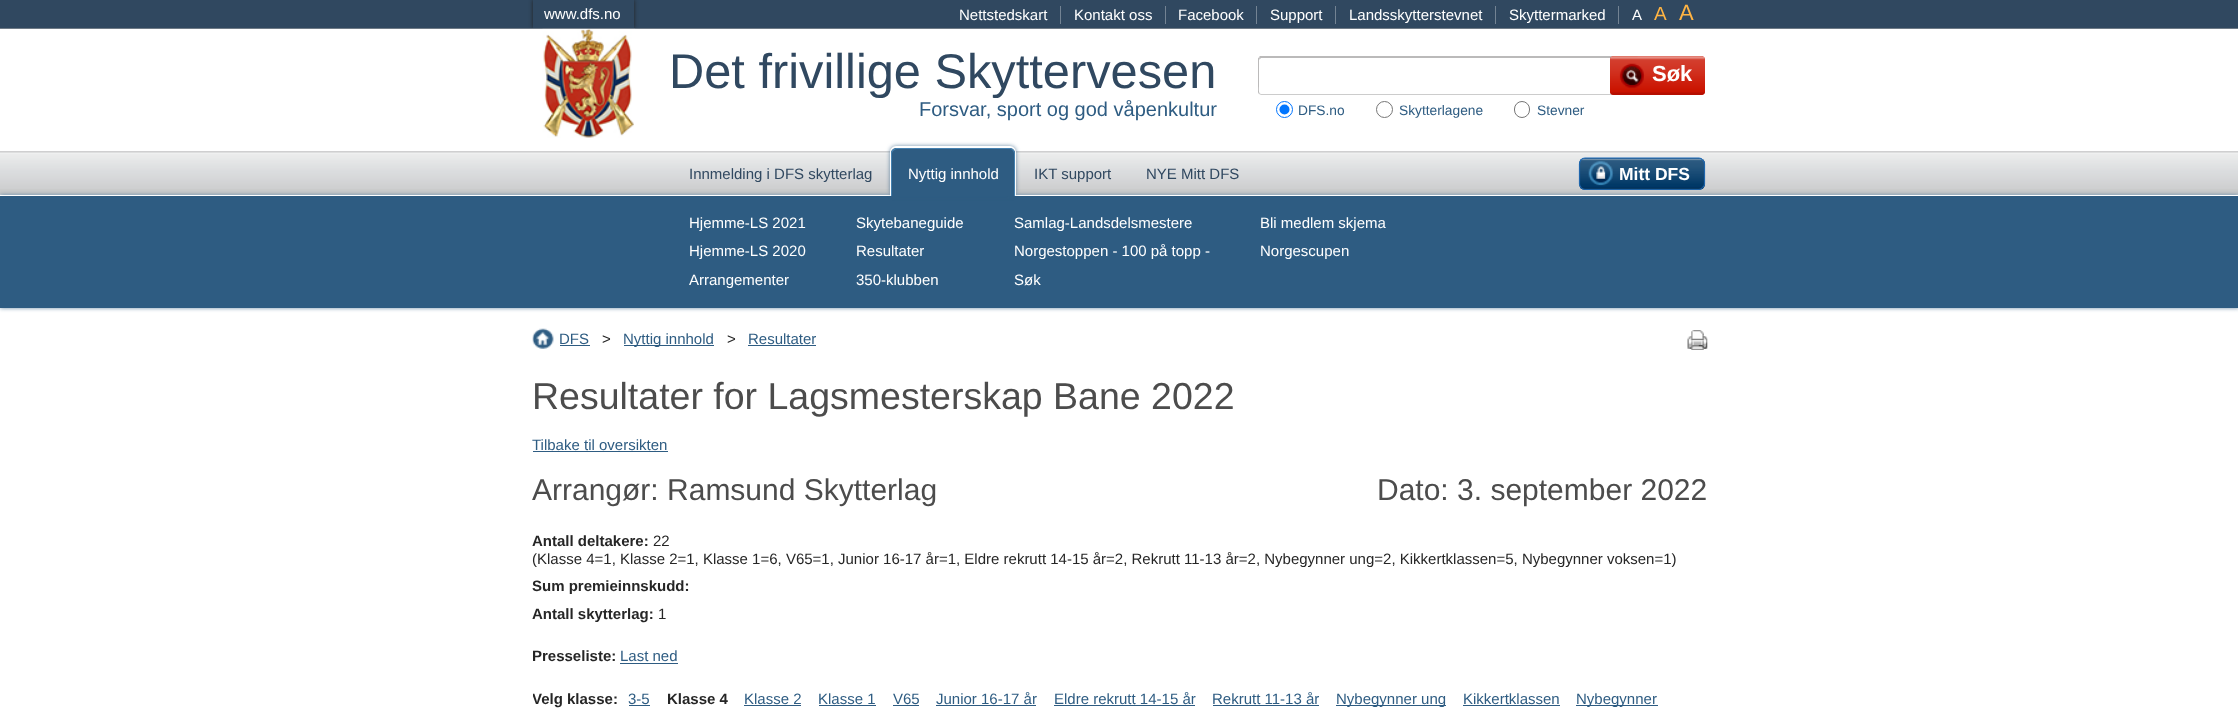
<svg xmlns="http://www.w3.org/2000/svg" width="2238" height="718">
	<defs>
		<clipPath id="clip1"><rect x="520" y="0" width="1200" height="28" /></clipPath>
		<clipPath id="clip2"><path d="M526 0H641V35H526ZM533 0H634V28H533Z" clip-rule="evenodd" /></clipPath>
		<clipPath id="clip3"><rect x="533" y="648" width="1175" height="17" /></clipPath>
		<clipPath id="clip4"><rect x="533" y="690" width="1175" height="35" /></clipPath>
	</defs>
	<rect width="100%" height="100%" fill="#FFFFFF" />
	<rect x="0" y="0" width="2238" height="28" fill="#304860" />
	<rect x="0" y="28" width="2238" height="1" fill="#6E7A86" />
	<g clip-path="url(#clip1)">
		<g clip-path="url(#clip2)">
			<rect x="533" y="0" width="101" height="28" fill="#222222" filter="blur(2px)" />
		</g>
	</g>
	<text x="544" y="19" font-family="Liberation Sans" font-size="15" fill="#FFFFFF">www.dfs.no</text>
	<rect x="1060" y="6" width="1" height="18" fill="#738393" />
	<text x="959" y="20" font-family="Liberation Sans" font-size="15" fill="#FFFFFF">Nettstedskart</text>
	<rect x="1165" y="6" width="1" height="18" fill="#738393" />
	<text x="1074" y="20" font-family="Liberation Sans" font-size="15" fill="#FFFFFF">Kontakt oss</text>
	<rect x="1256" y="6" width="1" height="18" fill="#738393" />
	<text x="1178" y="20" font-family="Liberation Sans" font-size="15" fill="#FFFFFF">Facebook</text>
	<rect x="1335" y="6" width="1" height="18" fill="#738393" />
	<text x="1270" y="20" font-family="Liberation Sans" font-size="15" fill="#FFFFFF">Support</text>
	<rect x="1495" y="6" width="1" height="18" fill="#738393" />
	<text x="1349" y="20" font-family="Liberation Sans" font-size="15" fill="#FFFFFF">Landsskytterstevnet</text>
	<rect x="1618" y="6" width="1" height="18" fill="#738393" />
	<g font-family="Liberation Sans" font-size="15" fill="#FFFFFF">
		<text x="1509" y="20">Skyttermarked</text>
		<text x="1632" y="20">A</text>
	</g>
	<text x="1654" y="20" font-family="Liberation Sans" font-size="19" fill="#FFB443">A</text>
	<text x="1679" y="20" font-family="Liberation Sans" font-size="22" fill="#FFB443">A</text>
	<image x="542" y="28" width="93" height="110" href="assets/img1.png" />
	<text x="669" y="88" font-family="Liberation Sans" font-size="48.75" fill="#304860">Det frivillige Skyttervesen</text>
	<text x="919" y="116" font-family="Liberation Sans" font-size="20" fill="#2E5C82">Forsvar, sport og god våpenkultur</text>
	<path d="M1261 58L1260 59L1259 57L1260 56H1612L1611 58Z" fill="#BBBABA" />
	<path d="M1261 95H1612V94H1611H1261L1259 93V94Z" fill="#CCCCCC" />
	<path d="M1259 94C1258 93 1258 92 1258 91V60C1258 59 1258 58 1258.5 57.5L1260 58.5L1259 60V86C1259 87 1258.5 91 1259.5 93Z" fill="#BBBABA" />
	<rect x="1610" y="56" width="95" height="39" rx="4" fill="#CE2412" />
	<image x="1610" y="56" width="95" height="39" href="assets/img2.png" />
	<text x="1652" y="81" font-family="Liberation Sans" font-size="22" font-weight="700" fill="#FFFFFF">Søk</text>
	<circle cx="1284.5" cy="109.5" r="8" fill="none" stroke="#0075FF" />
	<circle cx="1284.5" cy="109.5" r="5" fill="#0075FF" />
	<text x="1298" y="115" font-family="Liberation Sans" font-size="13.75" fill="#2E5C82">DFS.no</text>
	<circle cx="1384.5" cy="109.5" r="8" fill="none" stroke="#767676" />
	<text x="1399" y="115" font-family="Liberation Sans" font-size="13.75" fill="#2E5C82">Skytterlagene</text>
	<rect x="1514.5" y="101.5" width="15" height="16" rx="7.5" fill="none" stroke="#767676" />
	<text x="1537" y="115" font-family="Liberation Sans" font-size="13.75" fill="#2E5C82">Stevner</text>
	<rect x="0" y="152" width="2238" height="42" fill="#CACBCB" />
	<image x="0" y="152" width="2238" height="37" href="assets/img3.png" />
	<rect x="0" y="151" width="2238" height="1" fill="#CFCFD0" />
	<image x="0" y="194" width="2238" height="1" href="assets/img4.png" />
	<text x="689" y="179" font-family="Liberation Sans" font-size="15" fill="#304860">Innmelding i DFS skytterlag</text>
	<rect x="0" y="195" width="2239" height="113" fill="#2E5C82" fill-opacity="0.7" filter="blur(2px)" />
	<rect x="0" y="196" width="2238" height="112" fill="#2E5C82" />
	<rect x="0" y="195" width="2238" height="1" fill="#FFFFFF" />
	<rect x="890" y="146" width="126" height="50" rx="6" fill="#2E5C82" fill-opacity="0.7" filter="blur(2px)" />
	<path d="M896 146H1010C1013 146 1016 149 1016 152V196H890V152C890 149 893 146 896 146ZM896 148H1010C1013 148 1015 150 1015 152V196H891V152C891 150 893 148 896 148Z" fill="#FFFFFF" fill-rule="evenodd" />
	<path d="M897 148H1009C1012.5 148 1015 150.5 1015 154V196H891V154C891 150.5 893.5 148 897 148Z" fill="#2E5C82" />
	<path d="M898 148H1009C1012 148 1015 150 1015 154V196H891V154C891 150 894 148 898 148ZM898 149H1009C1012 149 1014 151 1014 154V196H892V154C892 151 895 149 898 149Z" fill="#4581B0" fill-rule="evenodd" />
	<text x="908" y="179" font-family="Liberation Sans" font-size="15" fill="#FFFFFF">Nyttig innhold</text>
	<g font-family="Liberation Sans" font-size="15" fill="#304860">
		<text x="1034" y="179">IKT support</text>
		<text x="1146" y="179">NYE Mitt DFS</text>
	</g>
	<rect x="1579" y="158" width="126" height="32" rx="6" fill="#22537B" />
	<image x="1580" y="158" width="125" height="31" href="assets/img5.png" />
	<path d="M1581 160C1582 158.5 1583.5 158 1585 158H1699C1700 158 1701.5 158.5 1702.5 160" fill="none" stroke="#216DB9" stroke-width="1.2" />
	<path d="M1702.5 160C1704 161 1704.5 162.5 1704.5 164V184C1704.5 185 1704 186.5 1702.5 187.5" fill="none" stroke="#1F66AD" stroke-width="1.2" />
	<path d="M1702.5 187.5C1701.5 189 1700 189.5 1699 189.5H1585C1583.5 189.5 1582 189 1581 187.5" fill="none" stroke="#1E62A6" stroke-width="1.2" />
	<path d="M1581 187.5C1580 186.5 1579.5 185 1579.5 184V164C1579.5 162.5 1580 161 1581 160" fill="none" stroke="#1F66AD" stroke-width="1.2" />
	<text x="1619" y="180" font-family="Liberation Sans" font-size="17.5" font-weight="700" fill="#FFFFFF">Mitt DFS</text>
	<g font-family="Liberation Sans" font-size="15" fill="#FFFFFF">
		<text x="689" y="228">Hjemme-LS 2021</text>
		<text x="689" y="256">Hjemme-LS 2020</text>
		<text x="689" y="285">Arrangementer</text>
		<text x="856" y="228">Skytebaneguide</text>
		<text x="856" y="256">Resultater</text>
		<text x="856" y="285">350-klubben</text>
		<text x="1014" y="228">Samlag-Landsdelsmestere</text>
		<text x="1014" y="256">Norgestoppen - 100 på topp -</text>
		<text x="1014" y="285">Søk</text>
		<text x="1260" y="228">Bli medlem skjema</text>
		<text x="1260" y="256">Norgescupen</text>
	</g>
	<image x="532" y="328" width="22" height="21" href="assets/img6.png" />
	<text x="559" y="344" font-family="Liberation Sans" font-size="15" fill="#2E5C82">DFS</text>
	<rect x="560" y="345" width="30" height="1" fill="#2E5C82" />
	<text x="602" y="344" font-family="Liberation Sans" font-size="15" fill="#262626">&gt;</text>
	<rect x="624" y="345" width="90" height="1" fill="#2E5C82" />
	<text x="623" y="344" font-family="Liberation Sans" font-size="15" fill="#2E5C82">Nyttig innhold</text>
	<text x="727" y="344" font-family="Liberation Sans" font-size="15" fill="#262626">&gt;</text>
	<text x="748" y="344" font-family="Liberation Sans" font-size="15" fill="#2E5C82">Resultater</text>
	<rect x="748" y="345" width="68" height="1" fill="#2E5C82" />
	<image x="1687" y="330" width="21" height="20" href="assets/img7.png" />
	<text x="532" y="409" font-family="Liberation Sans" font-size="37.5" fill="#4C4C4C">Resultater for Lagsmesterskap Bane 2022</text>
	<text x="532" y="450" font-family="Liberation Sans" font-size="15" fill="#2E5C82">Tilbake til oversikten</text>
	<rect x="533" y="451" width="135" height="1" fill="#2E5C82" />
	<g font-family="Liberation Sans" font-size="30" fill="#4C4C4C">
		<text x="532" y="500">Arrangør: Ramsund Skytterlag</text>
		<text x="1377" y="500">Dato: 3. september 2022</text>
	</g>
	<text x="532" y="546" font-family="Liberation Sans" font-size="15" font-weight="700" fill="#262626">Antall deltakere:</text>
	<g font-family="Liberation Sans" font-size="15" fill="#262626">
		<text x="653" y="546">22</text>
		<text x="532" y="564">(Klasse 4=1, Klasse 2=1, Klasse 1=6, V65=1, Junior 16-17 år=1, Eldre rekrutt 14-15 år=2, Rekrutt 11-13 år=2, Nybegynner ung=2, Kikkertklassen=5, Nybegynner voksen=1)</text>
	</g>
	<g font-family="Liberation Sans" font-size="15" font-weight="700" fill="#262626">
		<text x="532" y="591">Sum premieinnskudd:</text>
		<text x="532" y="619">Antall skytterlag:</text>
	</g>
	<text x="658" y="619" font-family="Liberation Sans" font-size="15" fill="#262626">1</text>
	<g clip-path="url(#clip3)">
		<text x="532" y="661" font-family="Liberation Sans" font-size="15" font-weight="700" fill="#262626">Presseliste:</text>
	</g>
	<text x="620" y="661" font-family="Liberation Sans" font-size="15" fill="#2E5C82">Last ned</text>
	<rect x="620" y="663" width="58" height="1" fill="#2E5C82" />
	<g clip-path="url(#clip4)">
		<text x="532" y="704" font-family="Liberation Sans" font-size="15" font-weight="700" fill="#262626">Velg klasse:</text>
	</g>
	<text x="628" y="704" font-family="Liberation Sans" font-size="15" fill="#2E5C82">3-5</text>
	<rect x="629" y="705" width="21" height="1" fill="#2E5C82" />
	<text x="667" y="704" font-family="Liberation Sans" font-size="15" font-weight="700" fill="#262626">Klasse 4</text>
	<text x="744" y="704" font-family="Liberation Sans" font-size="15" fill="#2E5C82">Klasse 2</text>
	<rect x="744" y="705" width="57" height="1" fill="#2E5C82" />
	<text x="818" y="704" font-family="Liberation Sans" font-size="15" fill="#2E5C82">Klasse 1</text>
	<rect x="819" y="705" width="57" height="1" fill="#2E5C82" />
	<text x="893" y="704" font-family="Liberation Sans" font-size="15" fill="#2E5C82">V65</text>
	<rect x="893" y="705" width="26" height="1" fill="#2E5C82" />
	<text x="936" y="704" font-family="Liberation Sans" font-size="15" fill="#2E5C82">Junior 16-17 år</text>
	<rect x="936" y="705" width="100" height="1" fill="#2E5C82" />
	<text x="1054" y="704" font-family="Liberation Sans" font-size="15" fill="#2E5C82">Eldre rekrutt 14-15 år</text>
	<rect x="1054" y="705" width="141" height="1" fill="#2E5C82" />
	<text x="1212" y="704" font-family="Liberation Sans" font-size="15" fill="#2E5C82">Rekrutt 11-13 år</text>
	<rect x="1213" y="705" width="106" height="1" fill="#2E5C82" />
	<rect x="1336" y="705" width="110" height="1" fill="#2E5C82" />
	<g font-family="Liberation Sans" font-size="15" fill="#2E5C82">
		<text x="1336" y="704">Nybegynner ung</text>
		<text x="1463" y="704">Kikkertklassen</text>
	</g>
	<rect x="1463" y="705" width="97" height="1" fill="#2E5C82" />
	<rect x="1576" y="705" width="82" height="1" fill="#2E5C82" />
	<text x="1576" y="704" font-family="Liberation Sans" font-size="15" fill="#2E5C82">Nybegynner</text>
</svg>
